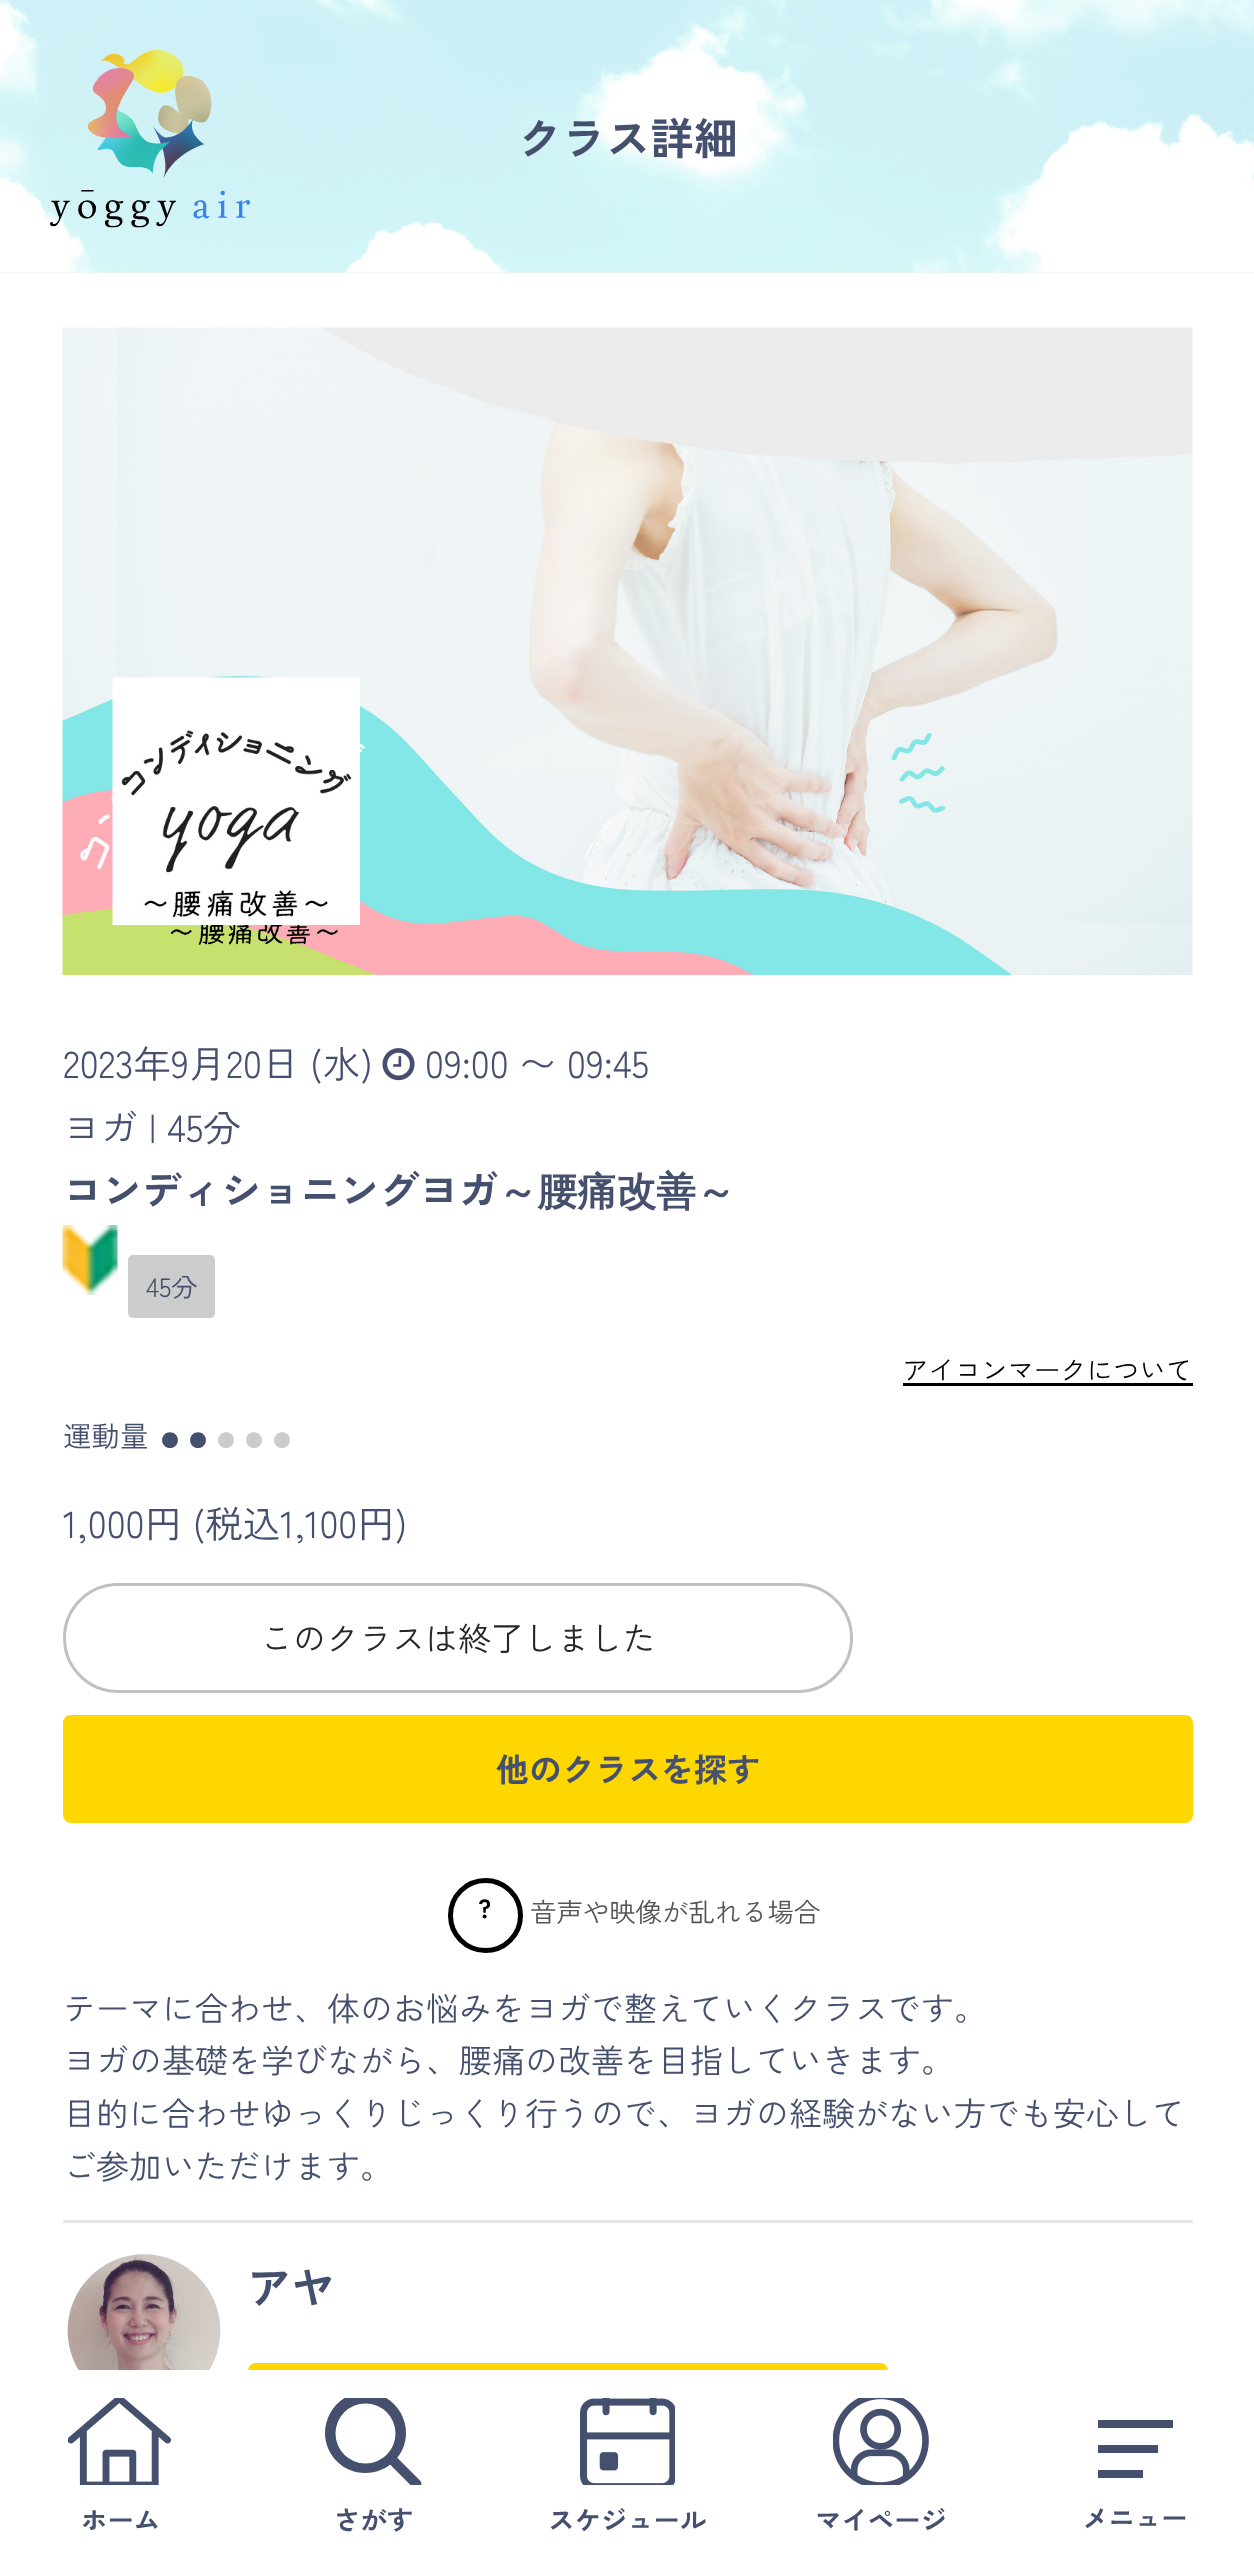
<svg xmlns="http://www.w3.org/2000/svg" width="1254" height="2570">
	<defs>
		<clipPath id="clip1"><rect x="325" y="2398" width="98" height="87" /></clipPath>
	</defs>
	<rect width="100%" height="100%" fill="#EEEEF0" />
	<image x="0" y="0" width="1254" height="273" href="assets/img2.png" />
	<image x="50" y="50" width="200" height="178" href="assets/img1.png" />
	<text x="518" y="155" font-family="Zen Kaku Gothic New" font-size="44" font-weight="700" fill="#45506F">クラス詳細</text>
	<rect x="0" y="273" width="1254" height="2097" fill="#FFFFFF" />
	<image x="62" y="327" width="1131" height="648" href="assets/img3.png" />
	<image x="112" y="677" width="248" height="248" href="assets/img4.png" />
	<text x="63" y="1078" font-family="Zen Kaku Gothic New" font-size="37.5" fill="#45506F">2023年9月20日 (水)</text>
	<image x="382" y="1048" width="33" height="33" href="assets/img5.png" />
	<g font-family="Zen Kaku Gothic New" font-size="37.5" fill="#45506F">
		<text x="425" y="1078">09:00 〜 09:45</text>
		<text x="63" y="1142">ヨガ | 45分</text>
	</g>
	<text x="63" y="1205" font-family="Zen Kaku Gothic New" font-size="39.6" font-weight="700" fill="#45506F">コンディショニングヨガ</text>
	<text x="498" y="1205" font-family="WenQuanYi Zen Hei" font-size="39.6" font-weight="700" fill="#45506F">～腰痛改善～</text>
	<image x="62" y="1225" width="56" height="70" href="assets/img6.png" />
	<rect x="128" y="1255" width="87" height="63" rx="5" fill="#CCCCCC" />
	<text x="146" y="1297" font-family="Zen Kaku Gothic New" font-size="26.4" fill="#45506F">45分</text>
	<text x="902" y="1380" font-family="Zen Kaku Gothic New" font-size="26.4" fill="#000000">アイコンマークについて</text>
	<rect x="903" y="1383" width="290" height="3" fill="#000000" />
	<text x="63" y="1447" font-family="Zen Kaku Gothic New" font-size="28.5" fill="#45506F">運動量</text>
	<g font-family="Zen Kaku Gothic New" font-size="18" fill="#45506F">
		<text x="161" y="1447">●</text>
		<text x="189" y="1447">●</text>
	</g>
	<g font-family="Zen Kaku Gothic New" font-size="18" fill="#CCCCCC">
		<text x="217" y="1447">●</text>
		<text x="245" y="1447">●</text>
		<text x="273" y="1447">●</text>
	</g>
	<text x="63" y="1538" font-family="Zen Kaku Gothic New" font-size="37.5" fill="#45506F">1,000円 (税込1,100円)</text>
	<rect x="64.5" y="1584.5" width="787" height="107" rx="53.5" fill="none" stroke="#C1C1C1" stroke-width="3" />
	<text x="260" y="1651" font-family="Zen Kaku Gothic New" font-size="33" fill="#272727">このクラスは終了しました</text>
	<rect x="63" y="1715" width="1130" height="108" rx="8" fill="#FFD700" />
	<text x="496" y="1782" font-family="Zen Kaku Gothic New" font-size="33" font-weight="700" fill="#45506F">他のクラスを探す</text>
	<circle cx="485.5" cy="1915.5" r="35" fill="none" stroke="#000000" stroke-width="5" />
	<text x="478" y="1918" font-family="Zen Kaku Gothic New" font-size="26.4" font-weight="700" fill="#000000">?</text>
	<text x="530" y="1922" font-family="Zen Kaku Gothic New" font-size="26.4" fill="#555555">音声や映像が乱れる場合</text>
	<rect x="63" y="2220" width="1130" height="3" fill="#E6E6E5" />
	<g font-family="Zen Kaku Gothic New" font-size="33" fill="#45506F">
		<text x="63" y="2021">テーマに合わせ、体のお悩みをヨガで整えていくクラスです。</text>
		<text x="63" y="2073">ヨガの基礎を学びながら、腰痛の改善を目指していきます。</text>
		<text x="63" y="2126">目的に合わせゆっくりじっくり行うので、ヨガの経験がない方でも安心して</text>
		<text x="63" y="2179">ご参加いただけます。</text>
	</g>
	<image x="67" y="2254" width="154" height="116" href="assets/img7.png" />
	<text x="247" y="2304" font-family="Zen Kaku Gothic New" font-size="44" font-weight="700" fill="#45506F">アヤ</text>
	<rect x="250.5" y="2365.5" width="635" height="95" rx="5.5" fill="#FFD700" stroke="#FFD700" stroke-width="5" />
	<rect x="0" y="2370" width="1254" height="200" fill="#FFFFFF" />
	<image x="68" y="2398" width="103" height="87" href="assets/img8.png" />
	<text x="81" y="2530" font-family="Zen Kaku Gothic New" font-size="26.4" font-weight="700" fill="#45506F">ホーム</text>
	<g clip-path="url(#clip1)">
		<path d="M325 2433C325 2455 343 2473 365 2473C388 2473 406 2455 406 2433C406 2411 388 2392 365 2392C343 2392 325 2411 325 2433" fill="#45506F" />
		<path d="M416.5 2484L394 2461.5" fill="none" stroke="#45506F" stroke-width="9.9" stroke-linecap="round" stroke-linejoin="round" />
	</g>
	<circle cx="365.5" cy="2433.5" r="30" fill="#FFFFFF" />
	<text x="334" y="2530" font-family="Zen Kaku Gothic New" font-size="26.4" font-weight="700" fill="#45506F">さがす</text>
	<image x="580" y="2398" width="95" height="87" href="assets/img9.png" />
	<text x="548" y="2530" font-family="Zen Kaku Gothic New" font-size="26.4" font-weight="700" fill="#45506F">スケジュール</text>
	<image x="833" y="2398" width="96" height="87" href="assets/img10.png" />
	<text x="815" y="2530" font-family="Zen Kaku Gothic New" font-size="26.4" font-weight="700" fill="#45506F">マイページ</text>
	<rect x="1098" y="2420" width="75" height="8" fill="#45506F" />
	<rect x="1098" y="2445" width="60" height="8" fill="#45506F" />
	<rect x="1098" y="2470" width="45" height="8" fill="#45506F" />
	<text x="1082" y="2528" font-family="Zen Kaku Gothic New" font-size="26.4" font-weight="700" fill="#45506F">メニュー</text>
</svg>
